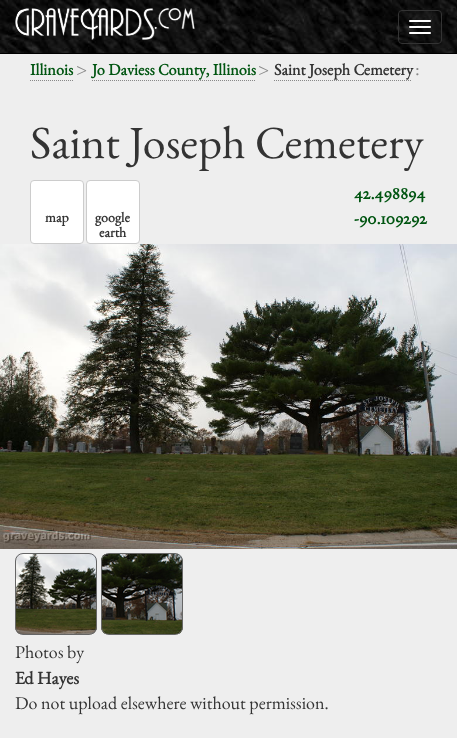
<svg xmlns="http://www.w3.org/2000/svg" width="457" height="738">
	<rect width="100%" height="100%" fill="#EEEEEE" />
	<image x="0" y="0" width="457" height="53" href="assets/img1.png" />
	<rect x="0" y="53" width="457" height="1" fill="#000000" />
	<image x="15" y="8" width="180" height="32" href="assets/img2.png" />
	<rect x="398.5" y="10.5" width="43" height="33" rx="3.5" fill="none" stroke="#333333" />
	<rect x="409" y="20" width="22" height="2" rx="1" fill="#FFFFFF" />
	<rect x="409" y="26" width="22" height="2" rx="1" fill="#FFFFFF" />
	<rect x="409" y="32" width="22" height="2" rx="1" fill="#FFFFFF" />
	<text x="30" y="75" font-family="EB Garamond" font-size="16.25" font-weight="700" fill="#005511">Illinois</text>
	<path d="M30 80.5H73" fill="none" stroke="#888888" stroke-dasharray="1 1" />
	<text x="76" y="75" font-family="EB Garamond" font-size="19" fill="#888888">&gt;</text>
	<text x="92" y="75" font-family="EB Garamond" font-size="16.25" font-weight="700" fill="#005511">Jo Daviess County, Illinois</text>
	<path d="M92 80.5H255" fill="none" stroke="#888888" stroke-dasharray="1 1" />
	<text x="258" y="75" font-family="EB Garamond" font-size="19" fill="#888888">&gt;</text>
	<text x="274" y="75" font-family="EB Garamond" font-size="16.25" font-weight="700" fill="#333333">Saint Joseph Cemetery</text>
	<path d="M274 80.5H412" fill="none" stroke="#888888" stroke-dasharray="1 1" />
	<text x="415" y="75" font-family="EB Garamond" font-size="19" fill="#888888">:</text>
	<text x="30" y="158" font-family="EB Garamond" font-size="46" fill="#333333">Saint Joseph Cemetery</text>
	<rect x="30.5" y="180.5" width="53" height="63" rx="3.5" fill="#FFFFFF" stroke="#CCCCCC" />
	<text x="45" y="222" font-family="EB Garamond" font-size="14" font-weight="700" fill="#333333">map</text>
	<rect x="86.5" y="180.5" width="53" height="63" rx="3.5" fill="#FFFFFF" stroke="#CCCCCC" />
	<g font-family="EB Garamond" font-size="14" font-weight="700" fill="#333333">
		<text x="95" y="222">google</text>
		<text x="99" y="237">earth</text>
	</g>
	<g font-family="EB Garamond" font-size="18" font-weight="700" fill="#005511">
		<text x="354" y="199">42.498894</text>
		<text x="354" y="224">-90.109292</text>
	</g>
	<image x="0" y="244" width="457" height="305" href="assets/img3.png" />
	<image x="15" y="554" width="82" height="80" href="assets/img4.png" />
	<rect x="15.5" y="553.5" width="81" height="81" rx="7.5" fill="none" stroke="#666666" />
	<image x="101" y="554" width="82" height="80" href="assets/img5.png" />
	<rect x="101.5" y="553.5" width="81" height="81" rx="7.5" fill="none" stroke="#666666" />
	<text x="15" y="658" font-family="EB Garamond" font-size="18" fill="#333333">Photos by</text>
	<text x="15" y="684" font-family="EB Garamond" font-size="18" font-weight="700" fill="#333333">Ed Hayes</text>
	<text x="15" y="709" font-family="EB Garamond" font-size="18" fill="#333333">Do not upload elsewhere without permission.</text>
</svg>
